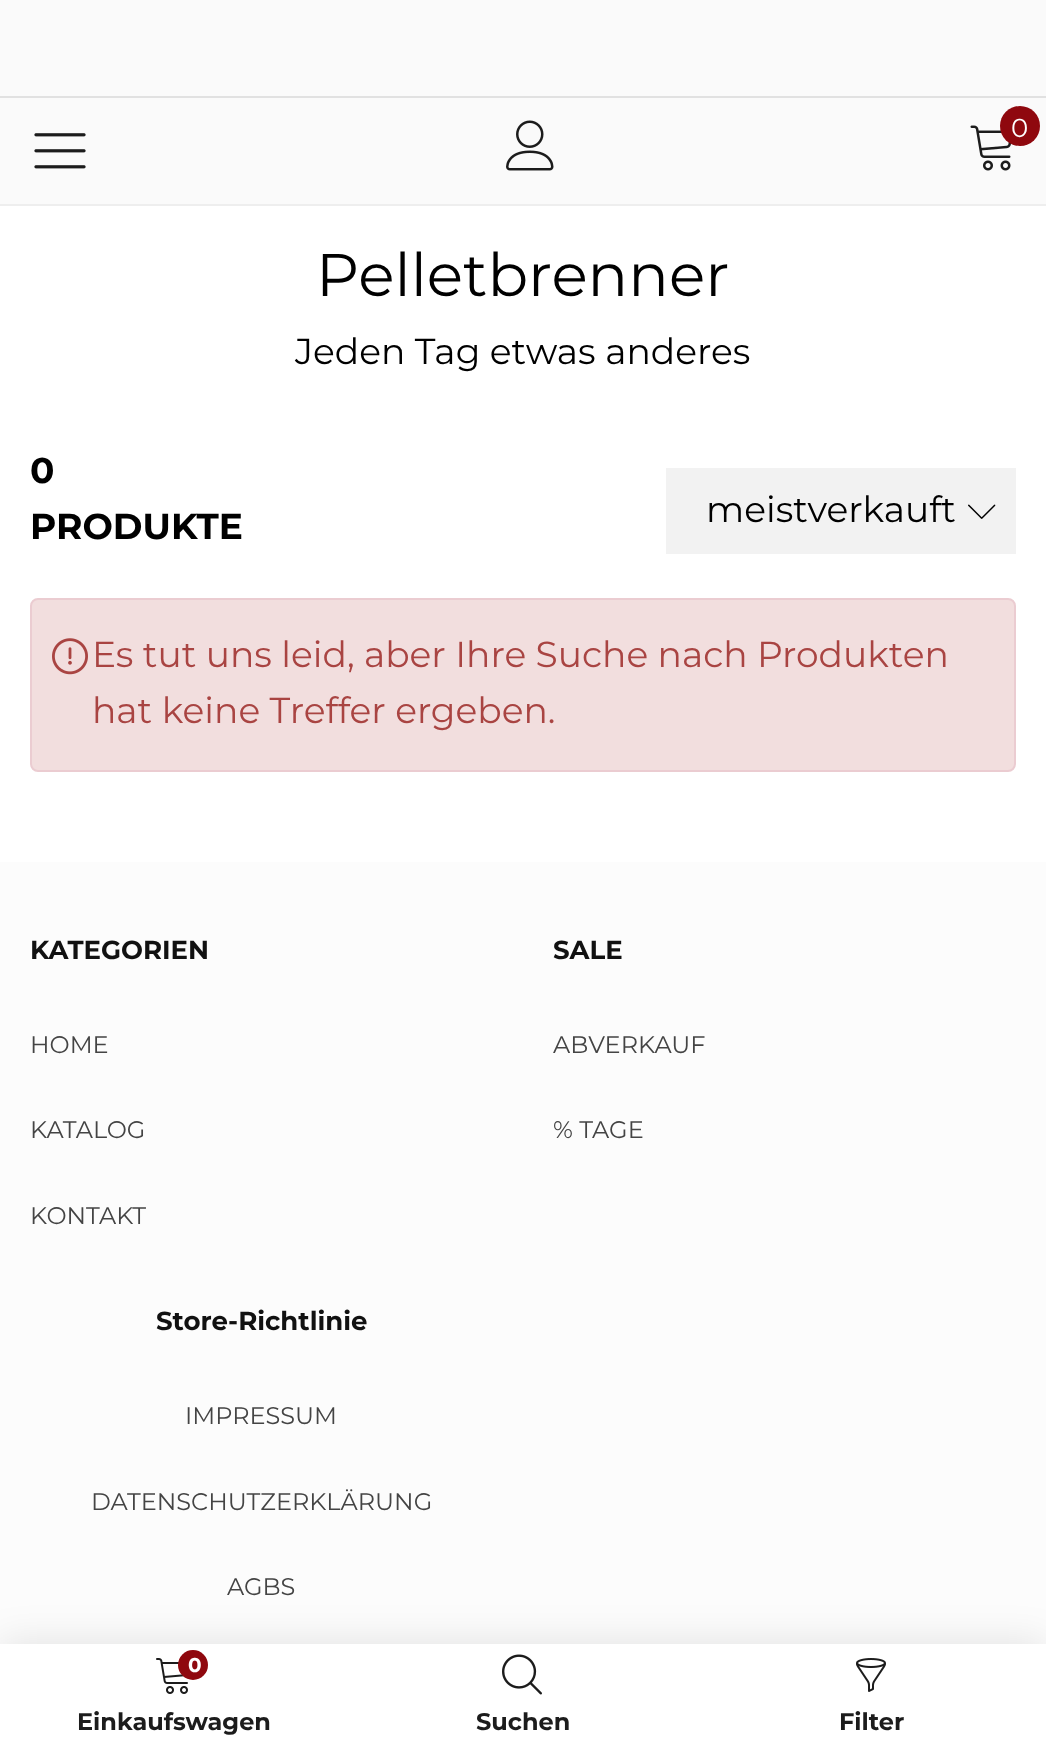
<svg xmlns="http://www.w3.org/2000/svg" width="1046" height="1753">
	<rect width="100%" height="100%" fill="#FFFFFF" />
	<rect x="0" y="0" width="1046" height="204" fill="#FAFAFA" />
	<rect x="0" y="204" width="1046" height="2" fill="#EEEEEE" />
	<rect x="0" y="96" width="1046" height="2" fill="#E1E1E1" />
	<image x="34" y="133" width="52" height="36" href="assets/img1.png" />
	<image x="506" y="120" width="48" height="51" href="assets/img2.png" />
	<image x="970" y="125" width="42" height="46" href="assets/img3.png" />
	<circle cx="1020" cy="126" r="20" fill="#8F080E" />
	<text x="1011" y="137" font-family="Montserrat" font-size="26" fill="#FFFFFF">0</text>
	<text x="316" y="296" font-family="Montserrat" font-size="60" fill="#000000">Pelletbrenner</text>
	<text x="295" y="364" font-family="Montserrat" font-size="36" fill="#000000">Jeden Tag etwas anderes</text>
	<g font-family="Montserrat" font-size="36" font-weight="700" fill="#000000">
		<text x="30" y="483">0</text>
		<text x="30" y="539">PRODUKTE</text>
	</g>
	<rect x="666" y="468" width="350" height="86" fill="#F2F2F2" />
	<text x="706" y="522" font-family="Montserrat" font-size="36" fill="#000000">meistverkauft</text>
	<image x="968" y="504" width="28" height="15" href="assets/img4.png" />
	<rect x="31" y="599" width="984" height="172" rx="7" fill="#F2DEDE" stroke="#EBCCD1" stroke-width="2" />
	<image x="52" y="638" width="36" height="37" href="assets/img5.png" />
	<g font-family="Montserrat" font-size="36" fill="#A94442">
		<text x="92" y="667">Es tut uns leid, aber Ihre Suche nach Produkten</text>
		<text x="92" y="723">hat keine Treffer ergeben.</text>
	</g>
	<rect x="0" y="862" width="1046" height="782" fill="#FCFCFC" />
	<rect x="0" y="1642" width="1046" height="110" fill="#000000" fill-opacity="0.1" filter="blur(19px)" />
	<rect x="0" y="1644" width="1046" height="109" fill="#FFFFFF" />
	<image x="156" y="1658" width="32" height="36" href="assets/img6.png" />
	<circle cx="193" cy="1665" r="15" fill="#8F080E" />
	<text x="188" y="1672" font-family="Montserrat" font-size="20" font-weight="700" letter-spacing="-2" fill="#FFFFFF">0</text>
	<text x="77" y="1730" font-family="Montserrat" font-size="24" font-weight="700" fill="#1C1C1C">Einkaufswagen</text>
	<image x="502" y="1654" width="40" height="41" href="assets/img7.png" />
	<text x="476" y="1730" font-family="Montserrat" font-size="24" font-weight="700" fill="#1C1C1C">Suchen</text>
	<image x="856" y="1658" width="30" height="34" href="assets/img8.png" />
	<text x="839" y="1730" font-family="Montserrat" font-size="24" font-weight="700" fill="#1C1C1C">Filter</text>
	<text x="30" y="959" font-family="Montserrat" font-size="26" font-weight="700" fill="#111111">KATEGORIEN</text>
	<g font-family="Montserrat" font-size="24" fill="#444444">
		<text x="30" y="1053">HOME</text>
		<text x="30" y="1138">KATALOG</text>
		<text x="30" y="1224">KONTAKT</text>
	</g>
	<text x="553" y="959" font-family="Montserrat" font-size="26" font-weight="700" fill="#111111">SALE</text>
	<g font-family="Montserrat" font-size="24" fill="#444444">
		<text x="553" y="1053">ABVERKAUF</text>
		<text x="553" y="1138">% TAGE</text>
	</g>
	<text x="156" y="1330" font-family="Montserrat" font-size="26" font-weight="700" fill="#111111">Store-Richtlinie</text>
	<g font-family="Montserrat" font-size="24" fill="#444444">
		<text x="185" y="1424">IMPRESSUM</text>
		<text x="91" y="1510">DATENSCHUTZERKLÄRUNG</text>
		<text x="227" y="1595">AGBS</text>
	</g>
</svg>
